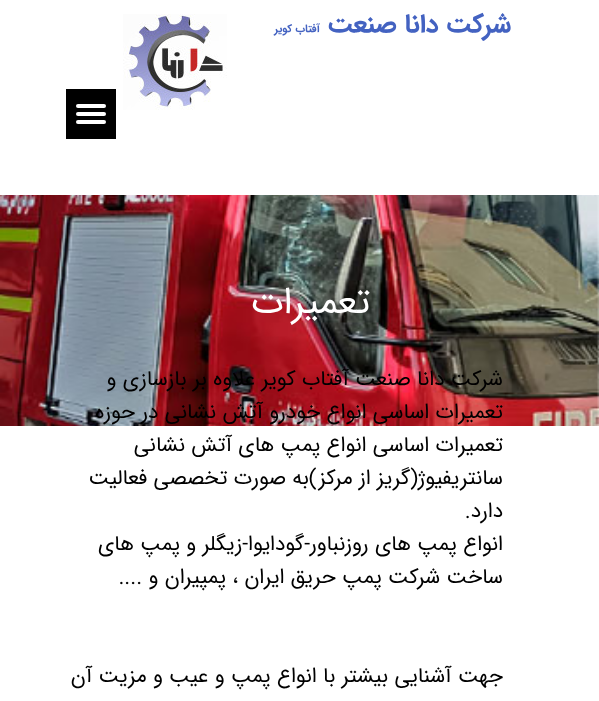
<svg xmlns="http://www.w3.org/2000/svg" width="599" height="701">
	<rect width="100%" height="100%" fill="#FFFFFF" />
	<text x="511" y="32" font-family="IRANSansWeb" font-size="26" font-weight="700" direction="rtl" fill="#4362C1">شرکت دانا صنعت</text>
	<text x="320" y="32" font-family="IRANSansWeb" font-size="11" font-weight="700" direction="rtl" fill="#4362C1">آفتاب کویر</text>
	<image x="123" y="14" width="104" height="96" href="assets/img1.png" />
	<rect x="66" y="89" width="50" height="50" fill="#000000" />
	<rect x="76" y="104" width="30" height="4" rx="2" fill="#FFFFFF" />
	<rect x="76" y="112" width="30" height="4" rx="2" fill="#FFFFFF" />
	<rect x="76" y="120" width="30" height="4" rx="2" fill="#FFFFFF" />
	<image x="0" y="195" width="599" height="231" href="assets/img2.png" />
	<text x="370" y="313" font-family="IRANSansWeb" font-size="37" direction="rtl" fill="#FFFFFF">تعميرات</text>
	<g font-family="IRANSansWeb" font-size="21" direction="rtl" fill="#000000">
		<text x="503" y="385">شرکت دانا صنعت آفتاب کویر علاوه بر بازسازی و</text>
		<text x="503" y="418">تعمیرات اساسی انواع خودرو آتش نشانی در حوزه</text>
		<text x="503" y="451">تعمیرات اساسی انواع پمپ های آتش نشانی</text>
		<text x="503" y="484">سانتریفیوژ(گریز از مرکز)به صورت تخصصی فعالیت</text>
		<text x="503" y="517">دارد.</text>
		<text x="503" y="550">انواع پمپ های روزنباور-گودایوا-زیگلر و پمپ های</text>
		<text x="503" y="583">ساخت شرکت پمپ حریق ایران ، پمپیران و ....</text>
		<text x="503" y="682">جهت آشنایی بیشتر با انواع پمپ و عیب و مزیت آن</text>
	</g>
</svg>
